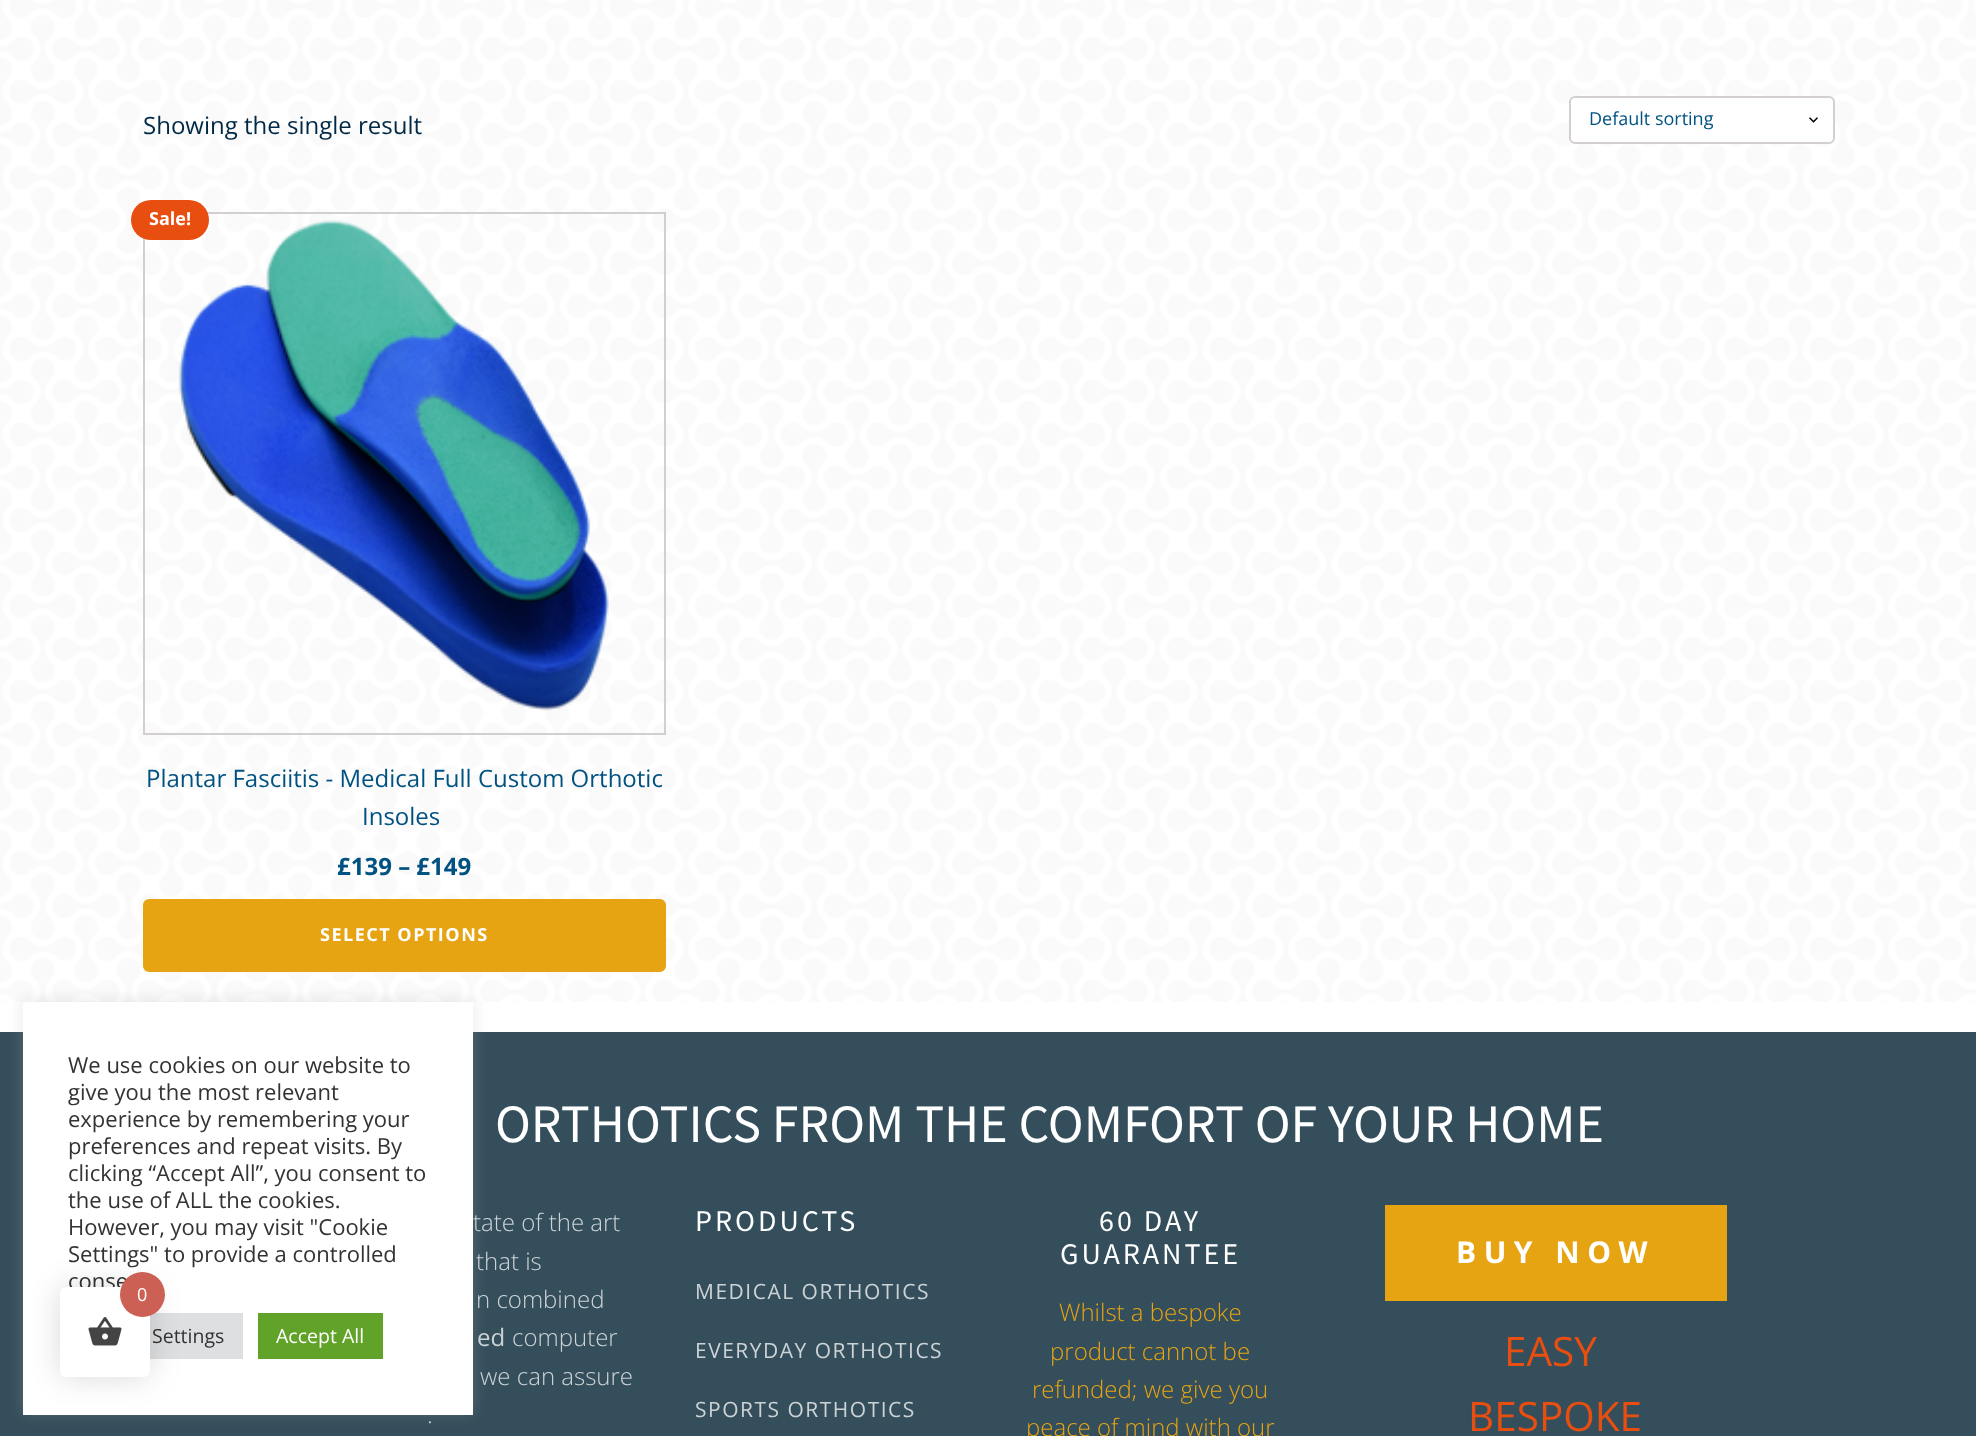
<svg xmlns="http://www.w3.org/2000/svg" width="1976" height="1436">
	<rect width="100%" height="100%" fill="#FFFFFF" />
	<image x="0" y="0" width="1976" height="1002" href="assets/img1.png" />
	<text x="143" y="134" font-family="Open Sans" font-size="24" fill="#002945">Showing the single result</text>
	<rect x="1569" y="96" width="266" height="48" rx="6" fill="#FFFFFF" />
	<image x="1809" y="117" width="9" height="6" href="assets/img2.png" />
	<rect x="1570" y="97" width="264" height="46" rx="5" fill="none" stroke="#D3CED2" stroke-width="2" />
	<text x="1589" y="125" font-family="Open Sans" font-size="18" fill="#005280">Default sorting</text>
	<rect x="144" y="213" width="521" height="521" fill="none" stroke="#D3CED2" stroke-width="2" />
	<image x="178" y="220" width="431" height="491" href="assets/img3.png" />
	<rect x="131" y="200" width="78" height="40" rx="20" fill="#E84E0F" />
	<text x="149" y="225" font-family="Open Sans" font-size="18" font-weight="700" fill="#FFFFFF">Sale!</text>
	<g font-family="Open Sans" font-size="24" fill="#005280">
		<text x="146" y="787">Plantar Fasciitis - Medical Full Custom Orthotic</text>
		<text x="362" y="825">Insoles</text>
	</g>
	<text x="337" y="875" font-family="Open Sans" font-size="24" font-weight="700" fill="#005280">£139 – £149</text>
	<rect x="144" y="900" width="521" height="71" rx="5" fill="#E6A413" stroke="#E6A413" stroke-width="2" />
	<text x="320" y="941" font-family="Open Sans" font-size="18" font-weight="700" letter-spacing="1.5" fill="#FFFFFF">SELECT OPTIONS</text>
	<rect x="0" y="1032" width="1976" height="404" fill="#344E5B" />
	<rect x="23" y="1001" width="450" height="412" fill="#ACABAB" fill-opacity="0.3" filter="blur(7.5px)" />
	<rect x="23" y="1002" width="450" height="413" fill="#FFFFFF" />
	<g font-family="Open Sans" font-size="22" fill="#333333">
		<text x="68" y="1073">We use cookies on our website to</text>
		<text x="68" y="1100">give you the most relevant</text>
		<text x="68" y="1127">experience by remembering your</text>
		<text x="68" y="1154">preferences and repeat visits. By</text>
		<text x="68" y="1181">clicking “Accept All”, you consent to</text>
		<text x="68" y="1208">the use of ALL the cookies.</text>
		<text x="68" y="1235">However, you may visit "Cookie</text>
		<text x="68" y="1262">Settings" to provide a controlled</text>
		<text x="68" y="1289">conse</text>
	</g>
	<rect x="150" y="1313" width="93" height="46" fill="#DEDFE0" />
	<text x="152" y="1343" font-family="Open Sans" font-size="19.5" fill="#333333">Settings</text>
	<rect x="258" y="1313" width="125" height="46" fill="#61A229" />
	<text x="276" y="1343" font-family="Open Sans" font-size="19.5" fill="#FFFFFF">Accept All</text>
	<text x="495" y="1142" font-family="Source Sans Pro" font-size="54" fill="#FFFFFF">ORTHOTICS FROM THE COMFORT OF YOUR HOME</text>
	<g font-family="Open Sans" font-size="24" font-weight="300" fill="#CCD3D6">
		<text x="473" y="1231">tate of the art</text>
		<text x="476" y="1270">that is</text>
		<text x="476" y="1308">n combined</text>
	</g>
	<text x="477" y="1346" font-family="Open Sans" font-size="24" fill="#CCD3D6">ed</text>
	<g font-family="Open Sans" font-size="24" font-weight="300" fill="#CCD3D6">
		<text x="512" y="1346">computer</text>
		<text x="480" y="1385">we can assure</text>
		<text x="427" y="1423">.</text>
	</g>
	<text x="695" y="1231" font-family="Source Sans Pro" font-size="30" letter-spacing="3" fill="#FFFFFF">PRODUCTS</text>
	<g font-family="Open Sans" font-size="21" letter-spacing="1.5" fill="#CCD3D6">
		<text x="695" y="1299">MEDICAL ORTHOTICS</text>
		<text x="695" y="1358">EVERYDAY ORTHOTICS</text>
		<text x="695" y="1417">SPORTS ORTHOTICS</text>
	</g>
	<g font-family="Source Sans Pro" font-size="30" letter-spacing="3" fill="#FFFFFF">
		<text x="1099" y="1231">60 DAY</text>
		<text x="1060" y="1264">GUARANTEE</text>
	</g>
	<g font-family="Open Sans" font-size="24" font-weight="300" fill="#E6A413">
		<text x="1059" y="1321">Whilst a bespoke</text>
		<text x="1050" y="1360">product cannot be</text>
		<text x="1032" y="1398">refunded; we give you</text>
		<text x="1026" y="1436">peace of mind with our</text>
	</g>
	<rect x="1385" y="1205" width="342" height="96" fill="#E6A413" />
	<text x="1456" y="1263" font-family="Open Sans" font-size="30" font-weight="700" letter-spacing="7.5" fill="#FFFFFF">BUY NOW</text>
	<g font-family="Open Sans" font-size="40.5" fill="#E84E0F">
		<text x="1504" y="1366">EASY</text>
		<text x="1468" y="1431">BESPOKE</text>
	</g>
	<rect x="60" y="1287" width="90" height="90" rx="6" fill="#000000" fill-opacity="0.15" filter="blur(15px)" />
	<rect x="60" y="1287" width="90" height="90" rx="6" fill="#FFFFFF" />
	<circle cx="142.5" cy="1294.5" r="22.5" fill="#CC6055" />
	<text x="137" y="1301" font-family="Open Sans" font-size="18" fill="#FFFFFF">0</text>
	<image x="88" y="1317" width="34" height="29" href="assets/img4.png" />
</svg>
